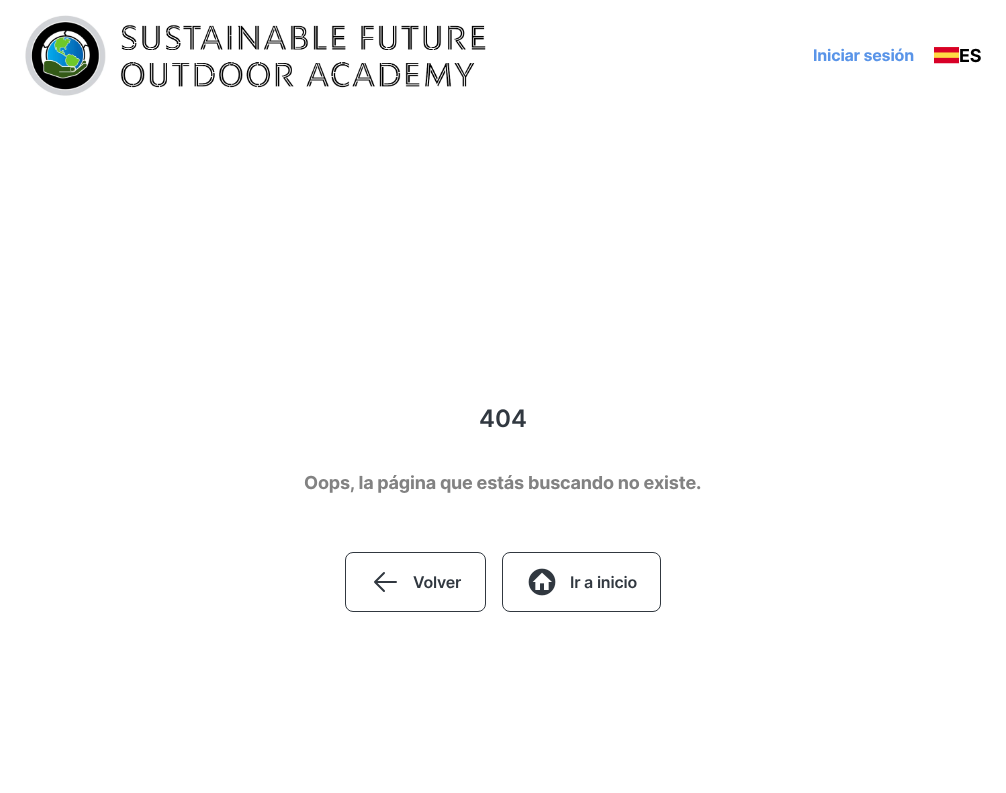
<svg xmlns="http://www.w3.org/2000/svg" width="1006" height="793">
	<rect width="100%" height="100%" fill="#FFFFFF" />
	<image x="25" y="15" width="461" height="81" href="assets/img1.png" />
	<text x="813" y="61" font-family="Inter" font-size="16" font-weight="700" letter-spacing="-0.2" fill="#5994E8">Iniciar sesión</text>
	<image x="934" y="47" width="25" height="17" href="assets/img2.png" />
	<text x="959" y="62" font-family="Inter" font-size="18" font-weight="700" letter-spacing="-0.2" fill="#000000">ES</text>
	<text x="479" y="427" font-family="Inter" font-size="24" font-weight="600" fill="#313840">404</text>
	<text x="304" y="489" font-family="Inter" font-size="18" font-weight="700" letter-spacing="-0.2" fill="#828282">Oops, la página que estás buscando no existe.</text>
	<rect x="345.5" y="552.5" width="140" height="59" rx="7.5" fill="none" stroke="#313840" />
	<path d="M384 573L375 582M384 591L375 582M375 582H396" fill="none" stroke="#313840" stroke-width="2" stroke-linecap="round" stroke-linejoin="round" />
	<text x="413" y="588" font-family="Inter" font-size="16" font-weight="600" letter-spacing="-0.2" fill="#313840">Volver</text>
	<rect x="502.5" y="552.5" width="158" height="59" rx="7.5" fill="none" stroke="#313840" />
	<image x="528" y="568" width="28" height="28" href="assets/img3.png" />
	<text x="570" y="588" font-family="Inter" font-size="16" font-weight="600" letter-spacing="-0.2" fill="#313840">Ir a inicio</text>
</svg>
